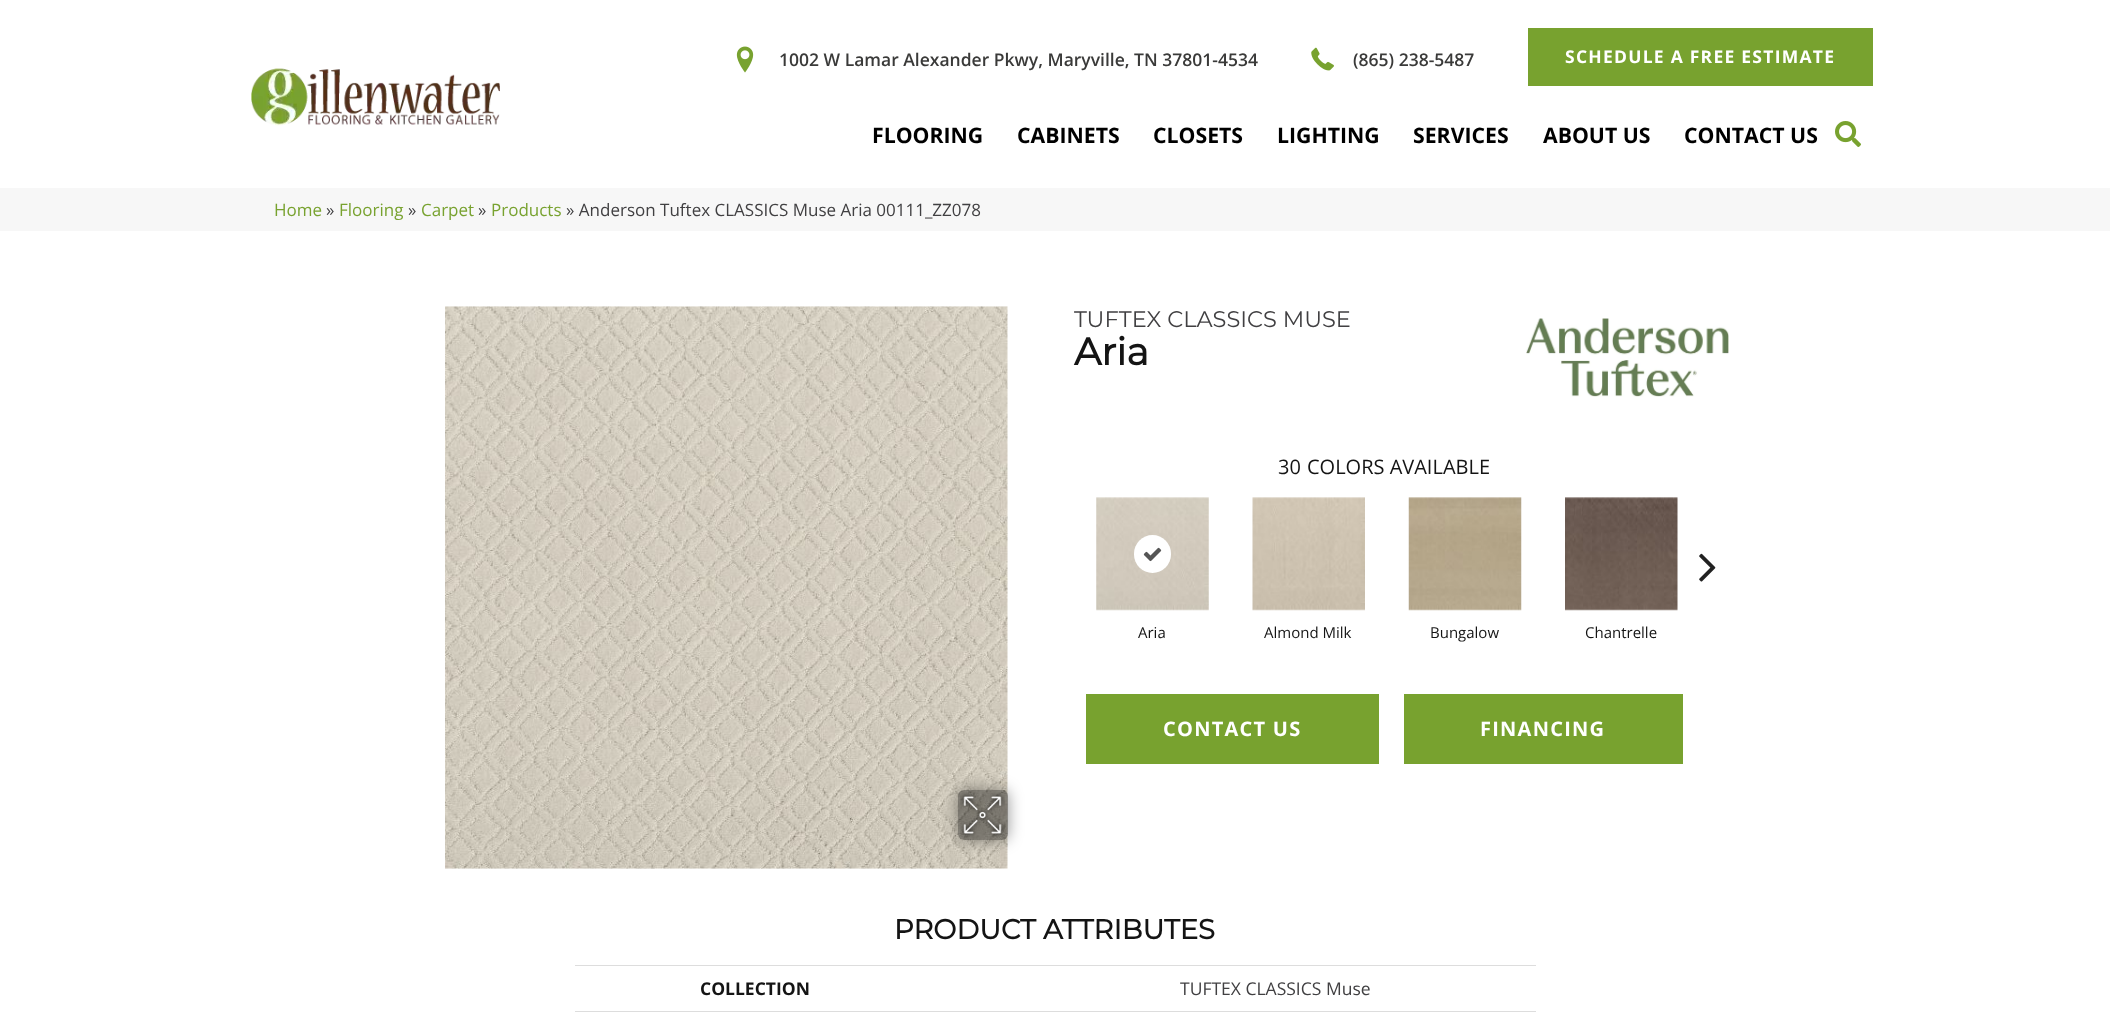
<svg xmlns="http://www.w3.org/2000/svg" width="2110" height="1036">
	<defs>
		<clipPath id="clip1"><path d="M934 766H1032V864H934ZM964 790H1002C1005.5 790 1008 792.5 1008 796V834C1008 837.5 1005.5 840 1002 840H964C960.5 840 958 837.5 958 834V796C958 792.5 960.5 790 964 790Z" clip-rule="evenodd" /></clipPath>
	</defs>
	<rect width="100%" height="100%" fill="#FFFFFF" />
	<image x="251" y="68" width="249" height="58" href="assets/img1.png" />
	<image x="736" y="46" width="18" height="27" href="assets/img2.png" />
	<text x="779" y="66" font-family="Open Sans" font-size="17.5" font-weight="600" fill="#3A3A39">1002 W Lamar Alexander Pkwy, Maryville, TN 37801-4534</text>
	<image x="1311" y="47" width="23" height="24" href="assets/img3.png" />
	<text x="1353" y="66" font-family="Open Sans" font-size="17.5" font-weight="600" fill="#3A3A39">(865) 238-5487</text>
	<rect x="1528" y="28" width="345" height="58" fill="#78A22F" />
	<text x="1565" y="63" font-family="Open Sans" font-size="17.5" font-weight="700" letter-spacing="1.25" fill="#FFFFFF">SCHEDULE A FREE ESTIMATE</text>
	<g font-family="Open Sans" font-size="21.25" font-weight="700" fill="#000000">
		<text x="872" y="143">FLOORING</text>
		<text x="1017" y="143">CABINETS</text>
		<text x="1153" y="143">CLOSETS</text>
		<text x="1277" y="143">LIGHTING</text>
		<text x="1413" y="143">SERVICES</text>
		<text x="1543" y="143">ABOUT US</text>
		<text x="1684" y="143">CONTACT US</text>
	</g>
	<image x="1835" y="121" width="26" height="26" href="assets/img4.png" />
	<rect x="0" y="188" width="2110" height="43" fill="#F7F7F7" />
	<text x="274" y="216" font-family="Open Sans" font-size="17" fill="#78A22F">Home</text>
	<text x="326" y="216" font-family="Open Sans" font-size="17" fill="#414042">»</text>
	<text x="339" y="216" font-family="Open Sans" font-size="17" fill="#78A22F">Flooring</text>
	<text x="408" y="216" font-family="Open Sans" font-size="17" fill="#414042">»</text>
	<text x="421" y="216" font-family="Open Sans" font-size="17" fill="#78A22F">Carpet</text>
	<text x="478" y="216" font-family="Open Sans" font-size="17" fill="#414042">»</text>
	<text x="491" y="216" font-family="Open Sans" font-size="17" fill="#78A22F">Products</text>
	<text x="566" y="216" font-family="Open Sans" font-size="17" fill="#414042">» Anderson Tuftex CLASSICS Muse Aria 00111_ZZ078</text>
	<image x="445" y="306" width="563" height="563" href="assets/img5.png" />
	<g clip-path="url(#clip1)">
		<rect x="958" y="790" width="50" height="50" rx="6" fill="#000000" fill-opacity="0.41" filter="blur(7.5px)" />
	</g>
	<rect x="958" y="790" width="50" height="50" rx="6" fill="#000000" fill-opacity="0.4" />
	<image x="960" y="792" width="45" height="46" href="assets/img6.png" />
	<text x="1074" y="327" font-family="Montserrat" font-size="22.5" font-weight="100" fill="#414042">TUFTEX CLASSICS MUSE</text>
	<text x="1074" y="365" font-family="Montserrat" font-size="38" font-weight="700" fill="#141414">Aria</text>
	<image x="1526" y="318" width="203" height="79" href="assets/img7.png" />
	<g font-family="Open Sans" font-size="20" fill="#141414">
		<text x="1278" y="474">30</text>
		<text x="1307" y="474">COLORS AVAILABLE</text>
	</g>
	<image x="1699" y="553" width="17" height="29" href="assets/img8.png" />
	<image x="1096" y="497" width="113" height="114" href="assets/img9.png" />
	<rect x="1134" y="535" width="37" height="38" rx="18.5" fill="#FFFFFF" />
	<image x="1143" y="547" width="19" height="15" href="assets/img10.png" />
	<text x="1138" y="638" font-family="Open Sans" font-size="15" fill="#141414">Aria</text>
	<image x="1252" y="497" width="113" height="114" href="assets/img11.png" />
	<text x="1264" y="638" font-family="Open Sans" font-size="15" fill="#141414">Almond Milk</text>
	<image x="1408" y="497" width="114" height="114" href="assets/img12.png" />
	<text x="1430" y="638" font-family="Open Sans" font-size="15" fill="#141414">Bungalow</text>
	<image x="1565" y="497" width="113" height="114" href="assets/img13.png" />
	<text x="1585" y="638" font-family="Open Sans" font-size="15" fill="#141414">Chantrelle</text>
	<rect x="1086" y="694" width="293" height="70" fill="#78A22F" />
	<text x="1163" y="736" font-family="Open Sans" font-size="20" font-weight="700" letter-spacing="1.25" fill="#FFFFFF">CONTACT US</text>
	<rect x="1404" y="694" width="279" height="70" fill="#78A22F" />
	<text x="1480" y="736" font-family="Open Sans" font-size="20" font-weight="700" letter-spacing="1.25" fill="#FFFFFF">FINANCING</text>
	<text x="894" y="939" font-family="Montserrat" font-size="27.5" font-weight="700" fill="#141414">PRODUCT ATTRIBUTES</text>
	<text x="700" y="995" font-family="Open Sans" font-size="17.5" font-weight="700" fill="#141414">COLLECTION</text>
	<rect x="575" y="965" width="961" height="1" fill="#DDDDDD" />
	<text x="1180" y="995" font-family="Open Sans" font-size="17.5" fill="#414042">TUFTEX CLASSICS Muse</text>
	<rect x="575" y="1011" width="961" height="1" fill="#DDDDDD" />
</svg>
